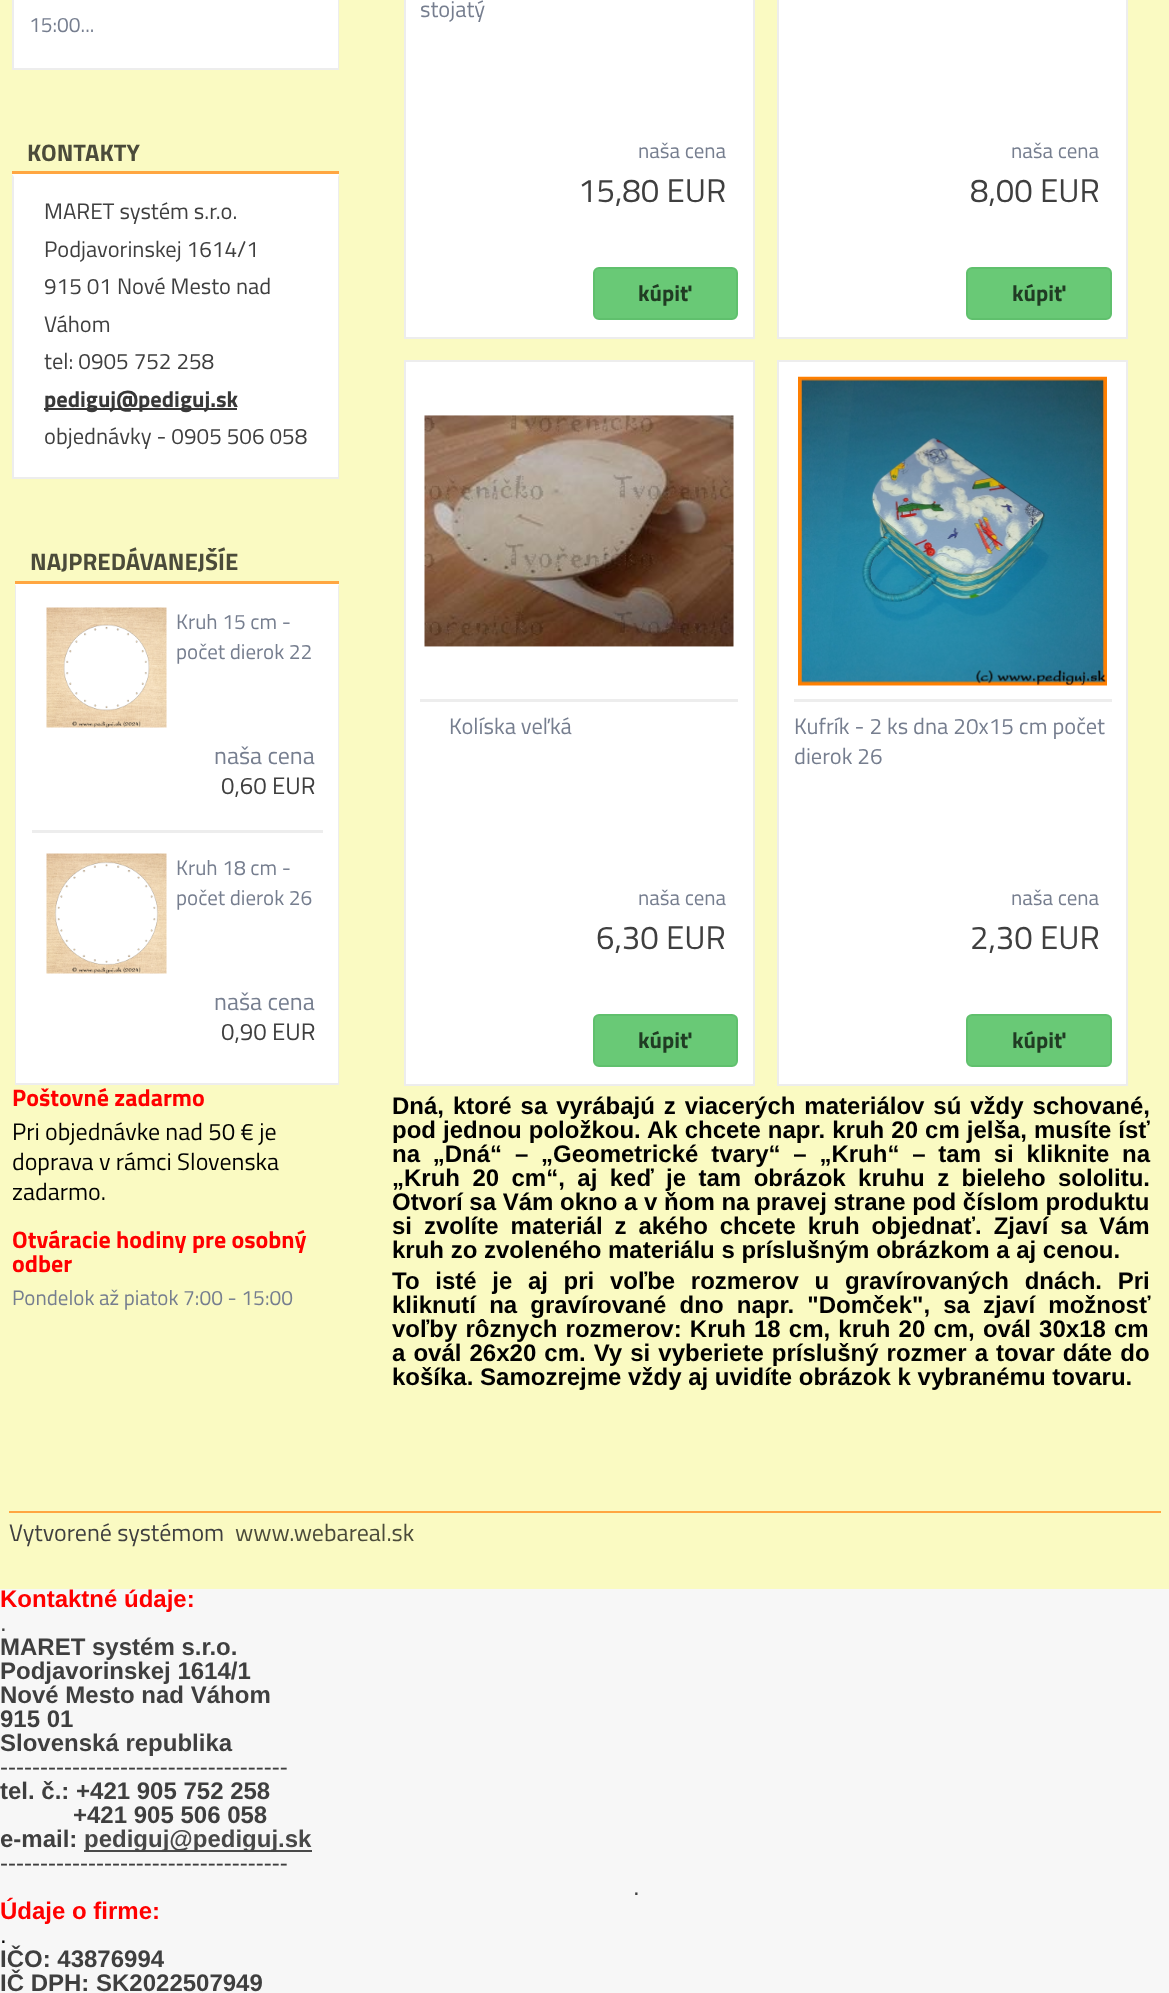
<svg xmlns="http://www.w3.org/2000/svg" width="1169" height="1993">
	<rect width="100%" height="100%" fill="#F7F7F7" />
	<rect x="0" y="0" width="1169" height="1589" fill="#FAFAC2" />
	<rect x="14" y="0" width="324" height="68" fill="#FFFFFF" />
	<path d="M339-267V69L338 68V-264Z" fill="#EDEDED" />
	<rect x="12" y="68" width="327" height="2" fill="#EDEDED" />
	<path d="M12 69V-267L14-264V68Z" fill="#EDEDED" />
	<text x="29" y="32" font-family="Titillium Web" font-size="21" fill="#767E8F">15:00...</text>
	<text x="27" y="161" font-family="Titillium Web" font-size="24" font-weight="700" fill="#4B4B3A">KONTAKTY</text>
	<rect x="12" y="171" width="327" height="3" fill="#FFA641" />
	<rect x="12" y="174" width="327" height="303" fill="#FFFFFF" />
	<path d="M339 174V478L338 477V177Z" fill="#EDEDED" />
	<rect x="12" y="477" width="327" height="2" fill="#EDEDED" />
	<path d="M12 478V174L14 177V477Z" fill="#EDEDED" />
	<g font-family="Titillium Web" font-size="22.5" fill="#3F3F3F">
		<text x="44" y="219">MARET systém s.r.o.</text>
		<text x="44" y="257">Podjavorinskej 1614/1</text>
		<text x="44" y="294">915 01 Nové Mesto nad</text>
		<text x="44" y="332">Váhom</text>
		<text x="44" y="369">tel: 0905 752 258</text>
	</g>
	<rect x="44" y="408" width="193" height="2" fill="#383838" />
	<text x="44" y="407" font-family="Titillium Web" font-size="22.5" font-weight="700" fill="#383838">pediguj@pediguj.sk</text>
	<text x="44" y="444" font-family="Titillium Web" font-size="22.5" fill="#3F3F3F">objednávky - 0905 506 058</text>
	<text x="30" y="570" font-family="Titillium Web" font-size="24" font-weight="700" fill="#4B4B3A">NAJPREDÁVANEJŠÍE</text>
	<rect x="15" y="581" width="324" height="3" fill="#FFA641" />
	<rect x="15" y="584" width="324" height="499" fill="#FFFFFF" />
	<path d="M339 584V1084L338 1083V586Z" fill="#EDEDED" />
	<rect x="15" y="1083" width="324" height="2" fill="#EDEDED" />
	<path d="M15 1084V584L16 586V1083Z" fill="#EDEDED" />
	<image x="46" y="607" width="121" height="121" href="assets/img1.png" />
	<g font-family="Titillium Web" font-size="21" fill="#767E8F">
		<text x="176" y="629">Kruh 15 cm -</text>
		<text x="176" y="659">počet dierok 22</text>
	</g>
	<text x="214" y="764" font-family="Titillium Web" font-size="24" fill="#767E8F">naša cena</text>
	<text x="221" y="794" font-family="Titillium Web" font-size="24" fill="#3F3F3F">0,60 EUR</text>
	<rect x="32" y="830" width="291" height="3" fill="#EDEDED" />
	<image x="46" y="853" width="121" height="121" href="assets/img2.png" />
	<g font-family="Titillium Web" font-size="21" fill="#767E8F">
		<text x="176" y="875">Kruh 18 cm -</text>
		<text x="176" y="905">počet dierok 26</text>
	</g>
	<text x="214" y="1010" font-family="Titillium Web" font-size="24" fill="#767E8F">naša cena</text>
	<text x="221" y="1040" font-family="Titillium Web" font-size="24" fill="#3F3F3F">0,90 EUR</text>
	<text x="12" y="1106" font-family="Titillium Web" font-size="24" font-weight="700" fill="#FF0000">Poštovné zadarmo</text>
	<g font-family="Titillium Web" font-size="24" fill="#000000">
		<text x="12" y="1140">Pri objednávke nad 50 € je</text>
		<text x="12" y="1170">doprava v rámci Slovenska</text>
		<text x="12" y="1200">zadarmo.</text>
	</g>
	<g font-family="Titillium Web" font-size="24" font-weight="700" fill="#FF0000">
		<text x="12" y="1248">Otváracie hodiny pre osobný</text>
		<text x="12" y="1272">odber</text>
	</g>
	<text x="12" y="1305" font-family="Titillium Web" font-size="21" fill="#767E8F">Pondelok až piatok 7:00 - 15:00</text>
	<rect x="405" y="-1" width="349" height="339" fill="#FFFFFF" stroke="#EDEDED" stroke-width="2" />
	<text x="420" y="17" font-family="Titillium Web" font-size="22.5" fill="#767E8F">stojatý</text>
	<text x="638" y="158" font-family="Titillium Web" font-size="21" fill="#767E8F">naša cena</text>
	<text x="578" y="202" font-family="Titillium Web" font-size="33" fill="#3F3F3F">15,80 EUR</text>
	<rect x="594" y="268" width="143" height="51" rx="5" fill="#69C976" stroke="#60C06D" stroke-width="2" />
	<text x="638" y="301" font-family="Titillium Web" font-size="22.5" font-weight="700" fill="#203C23">kúpiť</text>
	<rect x="778" y="-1" width="349" height="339" fill="#FFFFFF" stroke="#EDEDED" stroke-width="2" />
	<text x="1011" y="158" font-family="Titillium Web" font-size="21" fill="#767E8F">naša cena</text>
	<text x="970" y="202" font-family="Titillium Web" font-size="33" fill="#3F3F3F">8,00 EUR</text>
	<rect x="967" y="268" width="144" height="51" rx="5" fill="#69C976" stroke="#60C06D" stroke-width="2" />
	<text x="1012" y="301" font-family="Titillium Web" font-size="22.5" font-weight="700" fill="#203C23">kúpiť</text>
	<rect x="405" y="361" width="349" height="724" fill="#FFFFFF" stroke="#EDEDED" stroke-width="2" />
	<rect x="420" y="699" width="318" height="3" fill="#EDEDED" />
	<image x="424" y="415" width="310" height="232" href="assets/img3.png" />
	<text x="449" y="734" font-family="Titillium Web" font-size="22.5" fill="#767E8F">Kolíska veľká</text>
	<text x="638" y="905" font-family="Titillium Web" font-size="21" fill="#767E8F">naša cena</text>
	<text x="596" y="949" font-family="Titillium Web" font-size="33" fill="#3F3F3F">6,30 EUR</text>
	<rect x="594" y="1015" width="143" height="51" rx="5" fill="#69C976" stroke="#60C06D" stroke-width="2" />
	<text x="638" y="1048" font-family="Titillium Web" font-size="22.5" font-weight="700" fill="#203C23">kúpiť</text>
	<rect x="778" y="361" width="349" height="724" fill="#FFFFFF" stroke="#EDEDED" stroke-width="2" />
	<rect x="794" y="699" width="318" height="3" fill="#EDEDED" />
	<image x="798" y="376" width="309" height="310" href="assets/img4.png" />
	<g font-family="Titillium Web" font-size="22.5" fill="#767E8F">
		<text x="794" y="734">Kufrík - 2 ks dna 20x15 cm počet</text>
		<text x="794" y="764">dierok 26</text>
	</g>
	<text x="1011" y="905" font-family="Titillium Web" font-size="21" fill="#767E8F">naša cena</text>
	<text x="970" y="949" font-family="Titillium Web" font-size="33" fill="#3F3F3F">2,30 EUR</text>
	<rect x="967" y="1015" width="144" height="51" rx="5" fill="#69C976" stroke="#60C06D" stroke-width="2" />
	<text x="1012" y="1048" font-family="Titillium Web" font-size="22.5" font-weight="700" fill="#203C23">kúpiť</text>
	<g font-family="Liberation Sans" font-size="24" font-weight="700" fill="#000000">
		<text x="392" y="1114" word-spacing="2.25">Dná, ktoré sa vyrábajú z viacerých materiálov sú vždy schované,</text>
		<text x="392" y="1138" word-spacing="0.4">pod jednou položkou. Ak chcete napr. kruh 20 cm jelša, musíte ísť</text>
		<text x="392" y="1162" word-spacing="6.1">na „Dná“ – „Geometrické tvary“ – „Kruh“ – tam si kliknite na</text>
		<text x="392" y="1186" word-spacing="5.75">„Kruh 20 cm“, aj keď je tam obrázok kruhu z bieleho sololitu.</text>
		<text x="392" y="1210">Otvorí sa Vám okno a v ňom na pravej strane pod číslom produktu</text>
		<text x="392" y="1234" word-spacing="5.25">si zvolíte materiál z akého chcete kruh objednať. Zjaví sa Vám</text>
		<text x="392" y="1258">kruh zo zvoleného materiálu s príslušným obrázkom a aj cenou.</text>
		<text x="392" y="1289" word-spacing="9">To isté je aj pri voľbe rozmerov u gravírovaných dnách. Pri</text>
		<text x="392" y="1313" word-spacing="6.5">kliknutí na gravírované dno napr. "Domček", sa zjaví možnosť</text>
		<text x="392" y="1337" word-spacing="1.5">voľby rôznych rozmerov: Kruh 18 cm, kruh 20 cm, ovál 30x18 cm</text>
		<text x="392" y="1361" word-spacing="1.4">a ovál 26x20 cm. Vy si vyberiete príslušný rozmer a tovar dáte do</text>
		<text x="392" y="1385">košíka. Samozrejme vždy aj uvidíte obrázok k vybranému tovaru.</text>
	</g>
	<rect x="9" y="1511" width="1152" height="2" fill="#FFA641" />
	<text x="9" y="1541" font-family="Titillium Web" font-size="24" fill="#3F3F3F">Vytvorené systémom</text>
	<text x="235" y="1541" font-family="Titillium Web" font-size="24" fill="#4B4B3A">www.webareal.sk</text>
	<text x="0" y="1607" font-family="Liberation Sans" font-size="24" font-weight="700" fill="#FF0000">Kontaktné údaje:</text>
	<text x="0" y="1631" font-family="Liberation Sans" font-size="24" fill="#3F3F3F">.</text>
	<g font-family="Liberation Sans" font-size="24" font-weight="700" fill="#3F3F3F">
		<text x="0" y="1655">MARET systém s.r.o.</text>
		<text x="0" y="1679">Podjavorinskej 1614/1</text>
		<text x="0" y="1703">Nové Mesto nad Váhom</text>
		<text x="0" y="1727">915 01</text>
		<text x="0" y="1751">Slovenská republika</text>
	</g>
	<text x="0" y="1775" font-family="Liberation Sans" font-size="24" fill="#3F3F3F">------------------------------------</text>
	<g font-family="Liberation Sans" font-size="24" font-weight="700" fill="#3F3F3F">
		<text x="0" y="1799">tel. č.: +421 905 752 258</text>
		<text x="73" y="1823">+421 905 506 058</text>
		<text x="0" y="1847">e-mail:</text>
	</g>
	<rect x="84" y="1850" width="228" height="2" fill="#4A4A4A" />
	<text x="84" y="1847" font-family="Liberation Sans" font-size="24" font-weight="700" fill="#484848">pediguj@pediguj.sk</text>
	<g font-family="Liberation Sans" font-size="24" fill="#3F3F3F">
		<text x="0" y="1871">------------------------------------</text>
		<text x="633" y="1895">.</text>
	</g>
	<text x="0" y="1919" font-family="Liberation Sans" font-size="24" font-weight="700" fill="#FF0000">Údaje o firme:</text>
	<text x="0" y="1943" font-family="Liberation Sans" font-size="24" fill="#000000">.</text>
	<g font-family="Liberation Sans" font-size="24" font-weight="700" fill="#3F3F3F">
		<text x="0" y="1967">IČO: 43876994</text>
		<text x="0" y="1991">IČ DPH: SK2022507949</text>
	</g>
</svg>
